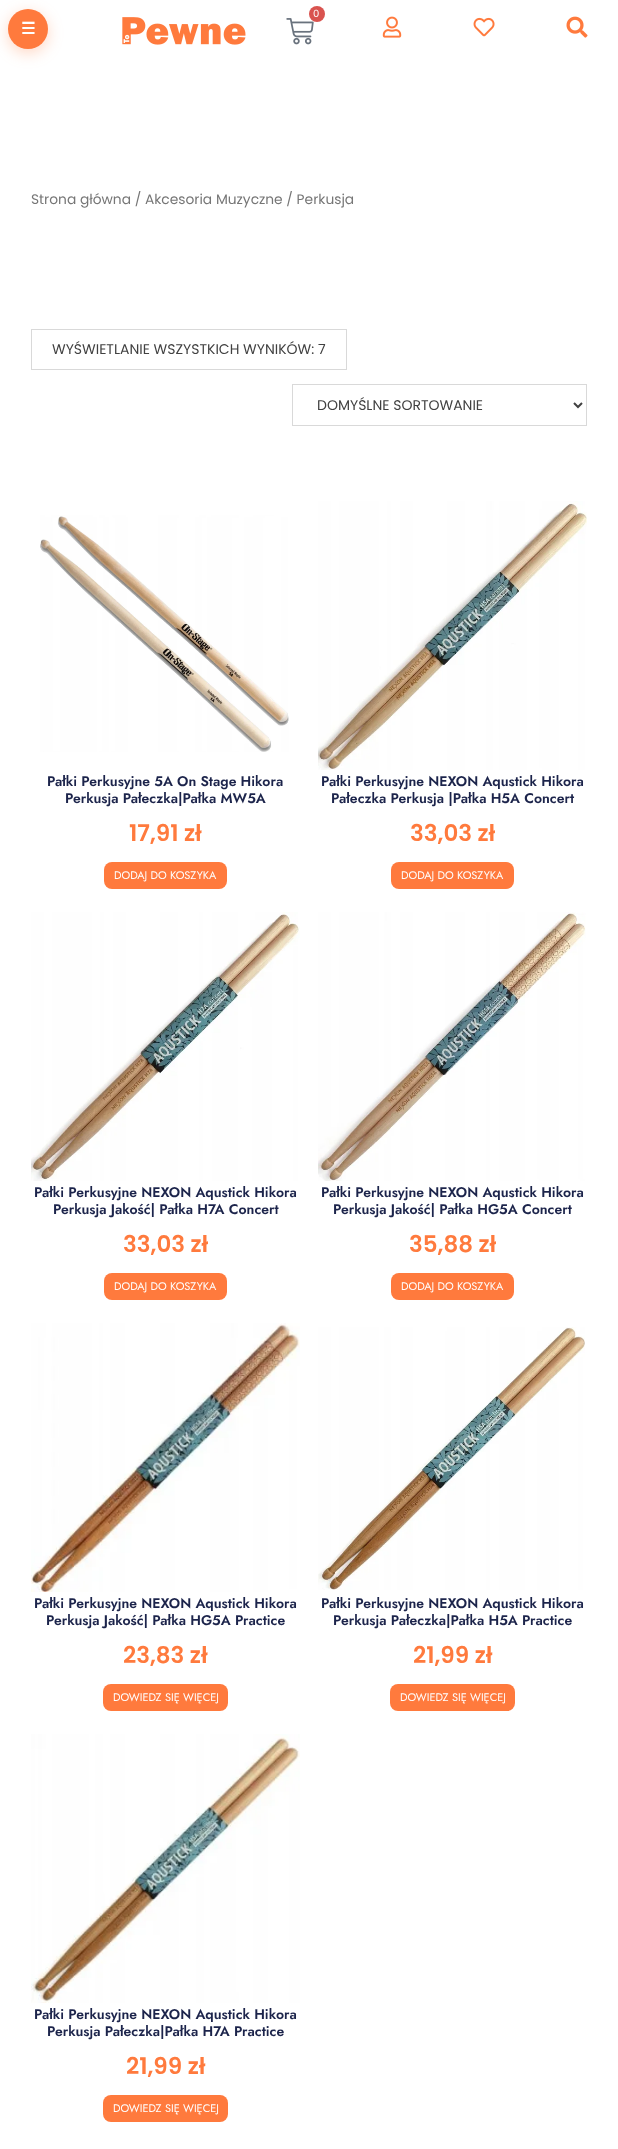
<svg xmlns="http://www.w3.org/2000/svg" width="618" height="2149">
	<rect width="100%" height="100%" fill="#FFFFFF" />
	<image x="286" y="18" width="28" height="27" href="assets/img1.png" />
	<circle cx="317" cy="14" r="8" fill="#D9534F" />
	<text x="313" y="17" font-family="Poppins" font-size="10" fill="#FFFFFF">0</text>
	<rect x="8" y="13" width="40" height="40" rx="20" fill="#FF7A3D" fill-opacity="0.3" filter="blur(7.5px)" />
	<circle cx="28" cy="29" r="20" fill="#FF7A3D" />
	<text x="21" y="34" font-family="DejaVu Sans" font-size="16" font-weight="700" fill="#FFFFFF">☰</text>
	<image x="122" y="17" width="124" height="28" href="assets/img2.png" />
	<image x="382" y="16" width="20" height="22" href="assets/img3.png" />
	<image x="473" y="17" width="22" height="20" href="assets/img4.png" />
	<image x="566" y="16" width="22" height="22" href="assets/img5.png" />
	<text x="31" y="204" font-family="Poppins" font-size="13.8" fill="#767676">Strona główna / Akcesoria Muzyczne / Perkusja</text>
	<rect x="31.5" y="329.5" width="315" height="40" fill="none" stroke="#D9D9D9" />
	<text x="52" y="354" font-family="Poppins" font-size="14" fill="#414141">WYŚWIETLANIE WSZYSTKICH WYNIKÓW: 7</text>
	<rect x="292.5" y="384.5" width="294" height="41" fill="none" stroke="#D9D9D9" />
	<path d="M574 403L578 407L582 403" fill="none" stroke="#414141" stroke-width="2" />
	<text x="317" y="410" font-family="Poppins" font-size="14" fill="#414141">DOMYŚLNE SORTOWANIE</text>
	<image x="40" y="515" width="249" height="237" href="assets/img6.png" />
	<g font-family="Jost" font-size="14" font-weight="600" fill="#1C244B">
		<text x="47" y="786">Pałki Perkusyjne 5A On Stage Hikora</text>
		<text x="65" y="803">Perkusja Pałeczka|Pałka MW5A</text>
	</g>
	<text x="129" y="841" font-family="Poppins" font-size="23" font-weight="600" fill="#FF7A3D">17,91 zł</text>
	<rect x="104" y="862" width="123" height="27" rx="8" fill="#FF7A3D" />
	<text x="114" y="879" font-family="Jost" font-size="11" fill="#FFFFFF">DODAJ DO KOSZYKA</text>
	<image x="318" y="501" width="269" height="269" href="assets/img7.png" />
	<g font-family="Jost" font-size="14" font-weight="600" fill="#1C244B">
		<text x="321" y="786">Pałki Perkusyjne NEXON Aqustick Hikora</text>
		<text x="331" y="803">Pałeczka Perkusja |Pałka H5A Concert</text>
	</g>
	<text x="410" y="841" font-family="Poppins" font-size="23" font-weight="600" fill="#FF7A3D">33,03 zł</text>
	<rect x="391" y="862" width="123" height="27" rx="8" fill="#FF7A3D" />
	<text x="401" y="879" font-family="Jost" font-size="11" fill="#FFFFFF">DODAJ DO KOSZYKA</text>
	<image x="31" y="912" width="269" height="269" href="assets/img8.png" />
	<g font-family="Jost" font-size="14" font-weight="600" fill="#1C244B">
		<text x="34" y="1197">Pałki Perkusyjne NEXON Aqustick Hikora</text>
		<text x="53" y="1214">Perkusja Jakość| Pałka H7A Concert</text>
	</g>
	<text x="123" y="1252" font-family="Poppins" font-size="23" font-weight="600" fill="#FF7A3D">33,03 zł</text>
	<rect x="104" y="1273" width="123" height="27" rx="8" fill="#FF7A3D" />
	<text x="114" y="1290" font-family="Jost" font-size="11" fill="#FFFFFF">DODAJ DO KOSZYKA</text>
	<image x="318" y="912" width="268" height="269" href="assets/img9.png" />
	<g font-family="Jost" font-size="14" font-weight="600" fill="#1C244B">
		<text x="321" y="1197">Pałki Perkusyjne NEXON Aqustick Hikora</text>
		<text x="333" y="1214">Perkusja Jakość| Pałka HG5A Concert</text>
	</g>
	<text x="409" y="1252" font-family="Poppins" font-size="23" font-weight="600" fill="#FF7A3D">35,88 zł</text>
	<rect x="391" y="1273" width="123" height="27" rx="8" fill="#FF7A3D" />
	<text x="401" y="1290" font-family="Jost" font-size="11" fill="#FFFFFF">DODAJ DO KOSZYKA</text>
	<image x="31" y="1323" width="269" height="269" href="assets/img10.png" />
	<g font-family="Jost" font-size="14" font-weight="600" fill="#1C244B">
		<text x="34" y="1608">Pałki Perkusyjne NEXON Aqustick Hikora</text>
		<text x="46" y="1625">Perkusja Jakość| Pałka HG5A Practice</text>
	</g>
	<text x="123" y="1663" font-family="Poppins" font-size="23" font-weight="600" fill="#FF7A3D">23,83 zł</text>
	<rect x="103" y="1684" width="125" height="27" rx="8" fill="#FF7A3D" />
	<text x="113" y="1701" font-family="Jost" font-size="11" fill="#FFFFFF">DOWIEDZ SIĘ WIĘCEJ</text>
	<image x="318" y="1327" width="267" height="263" href="assets/img11.png" />
	<g font-family="Jost" font-size="14" font-weight="600" fill="#1C244B">
		<text x="321" y="1608">Pałki Perkusyjne NEXON Aqustick Hikora</text>
		<text x="333" y="1625">Perkusja Pałeczka|Pałka H5A Practice</text>
	</g>
	<text x="413" y="1663" font-family="Poppins" font-size="23" font-weight="600" fill="#FF7A3D">21,99 zł</text>
	<rect x="390" y="1684" width="125" height="27" rx="8" fill="#FF7A3D" />
	<text x="400" y="1701" font-family="Jost" font-size="11" fill="#FFFFFF">DOWIEDZ SIĘ WIĘCEJ</text>
	<image x="31" y="1734" width="269" height="269" href="assets/img12.png" />
	<g font-family="Jost" font-size="14" font-weight="600" fill="#1C244B">
		<text x="34" y="2019">Pałki Perkusyjne NEXON Aqustick Hikora</text>
		<text x="47" y="2036">Perkusja Pałeczka|Pałka H7A Practice</text>
	</g>
	<text x="126" y="2074" font-family="Poppins" font-size="23" font-weight="600" fill="#FF7A3D">21,99 zł</text>
	<rect x="103" y="2095" width="125" height="27" rx="8" fill="#FF7A3D" />
	<text x="113" y="2112" font-family="Jost" font-size="11" fill="#FFFFFF">DOWIEDZ SIĘ WIĘCEJ</text>
</svg>
